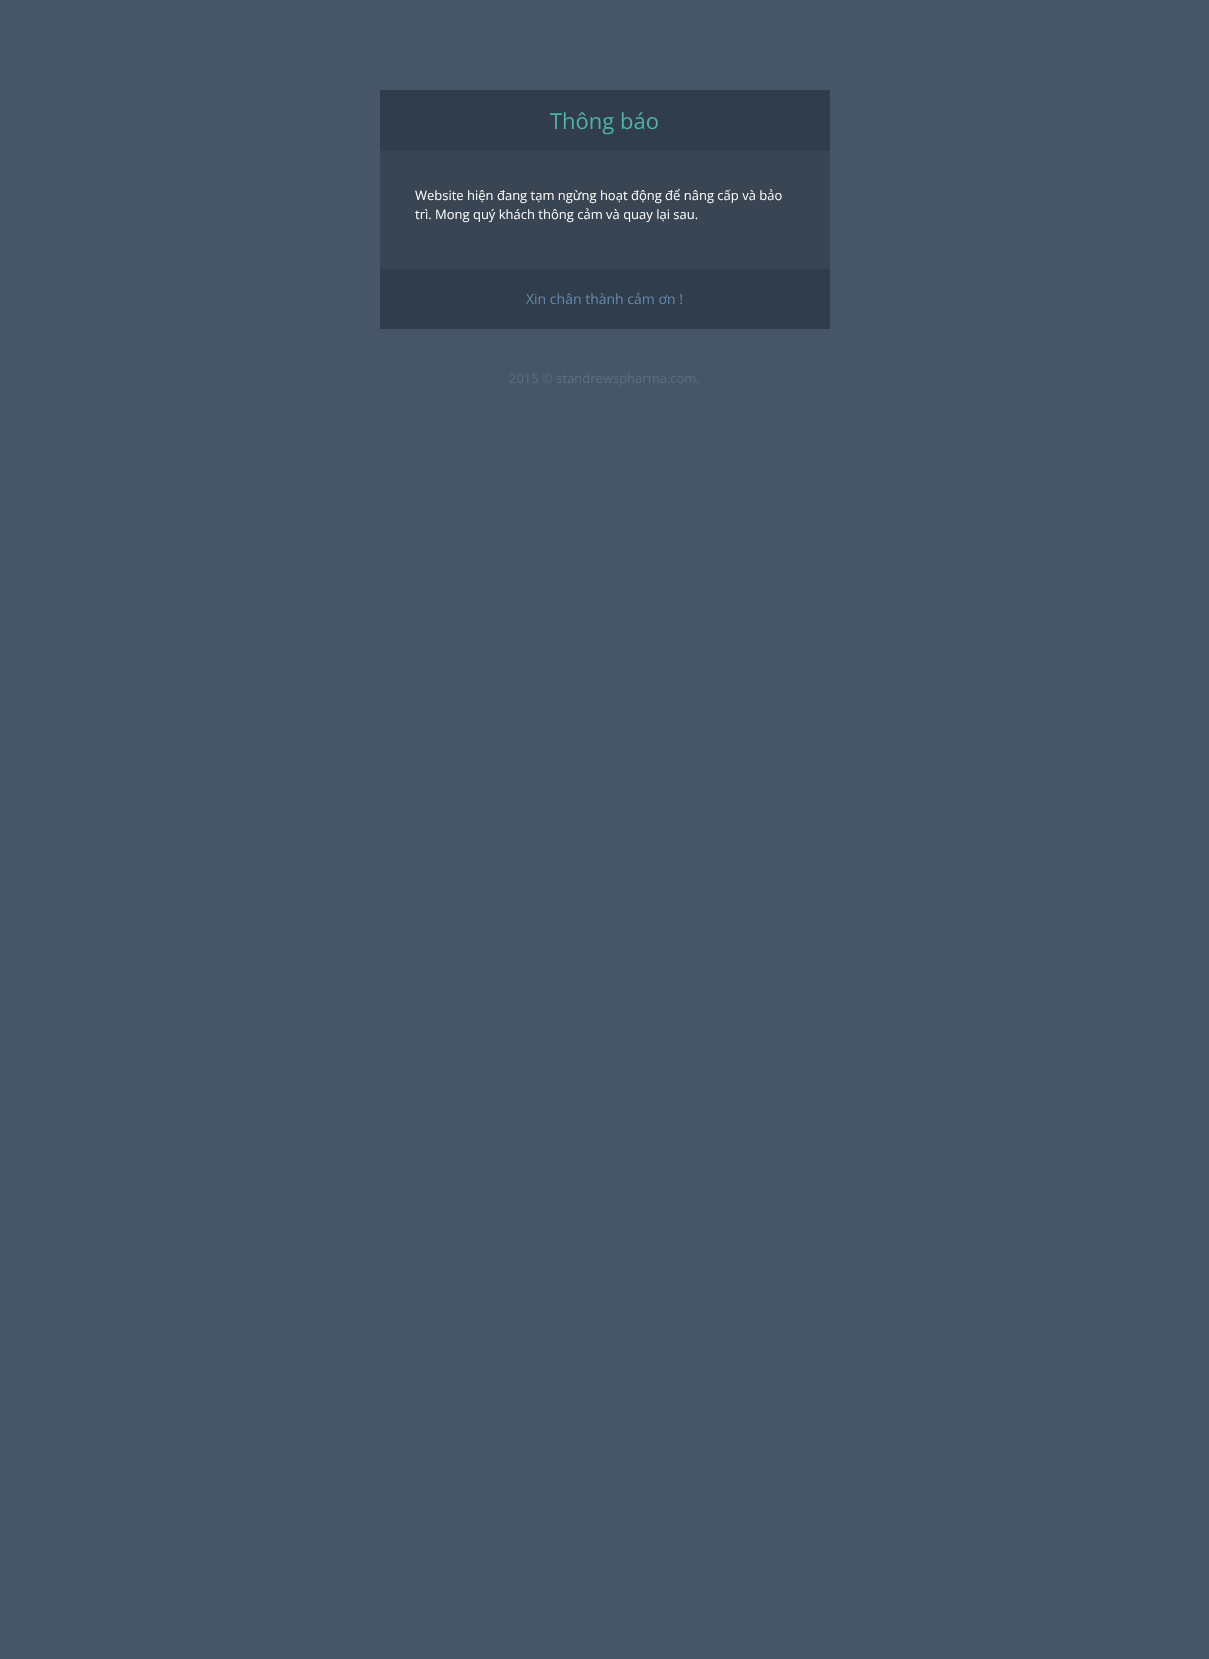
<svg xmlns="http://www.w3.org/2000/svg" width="1209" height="1659">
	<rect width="100%" height="100%" fill="#465568" />
	<rect x="380" y="151" width="450" height="118" fill="#3A4554" />
	<rect x="380" y="90" width="450" height="61" fill="#323D4B" />
	<text x="550" y="129" font-family="Open Sans" font-size="22" fill="#4DB3A5">Thông báo</text>
	<g font-family="Open Sans" font-size="13" fill="#FFFFFF">
		<text x="415" y="200">Website hiện đang tạm ngừng hoạt động để nâng cấp và bảo</text>
		<text x="415" y="219">trì. Mong quý khách thông cảm và quay lại sau.</text>
	</g>
	<rect x="380" y="269" width="450" height="60" fill="#323D4B" />
	<text x="526" y="304" font-family="Open Sans" font-size="14" fill="#638CAC">Xin chân thành cảm ơn !</text>
	<text x="509" y="383" font-family="Open Sans" font-size="13" fill="#5F6E83">2015 © standrewspharma.com.</text>
</svg>
